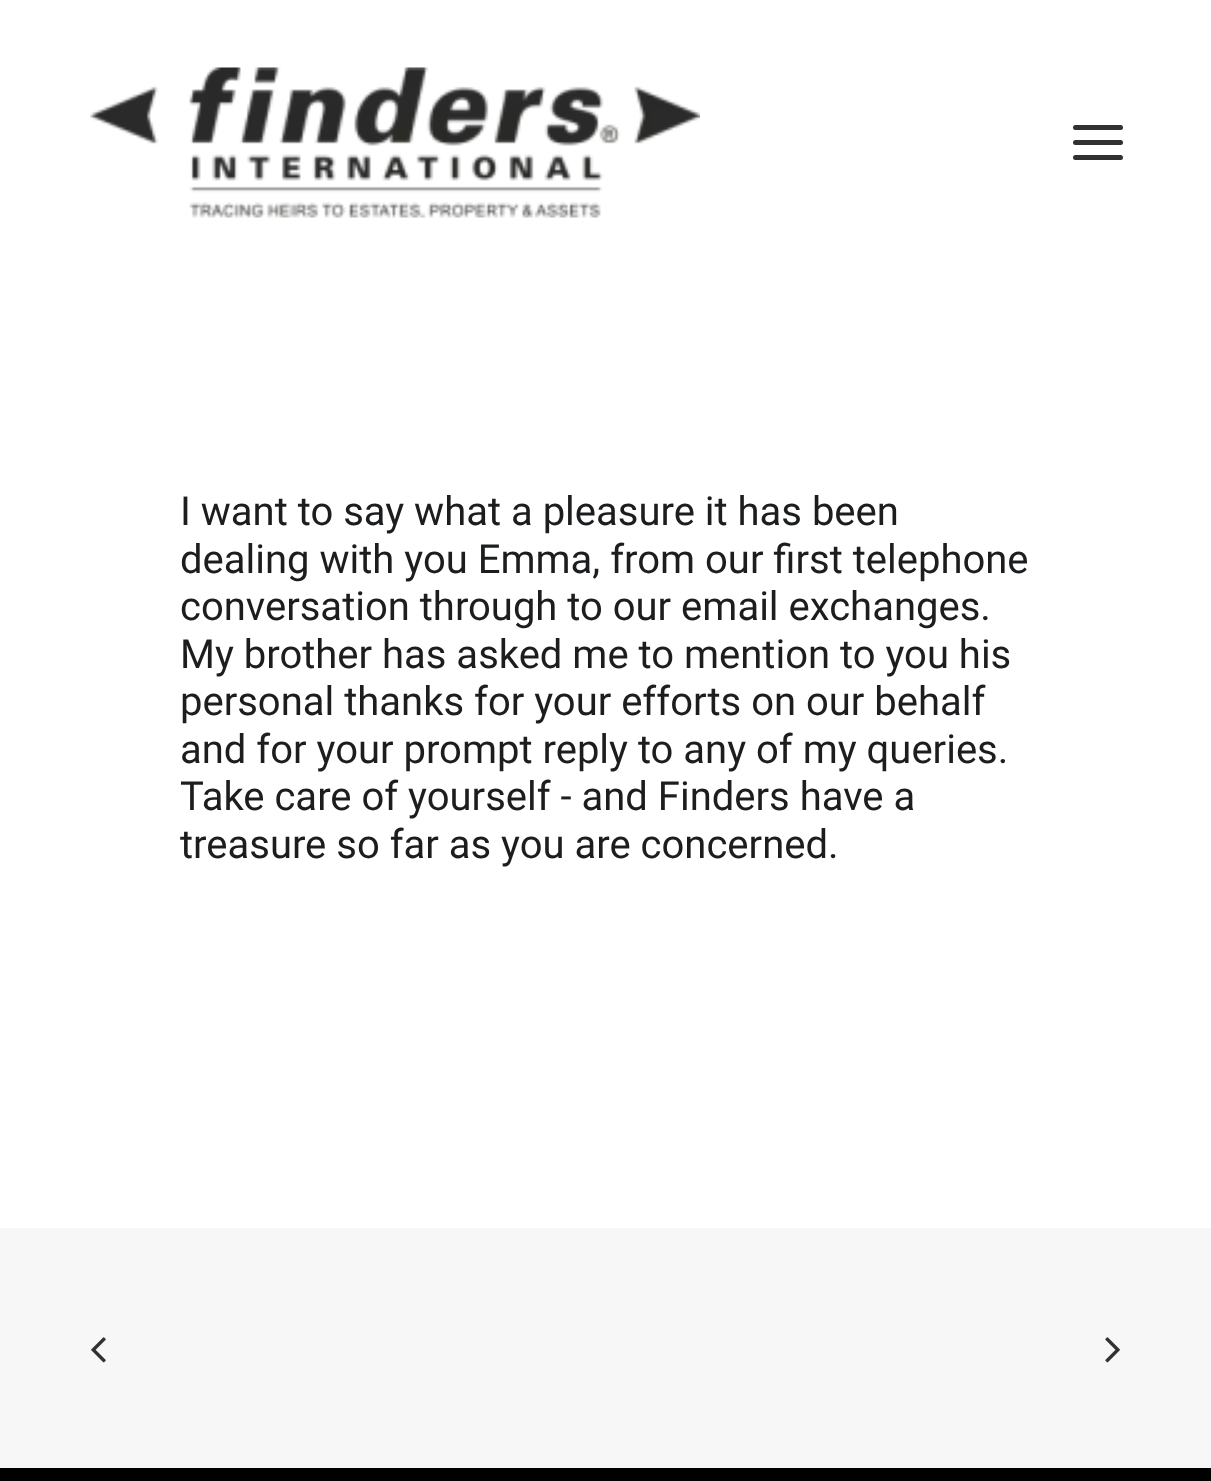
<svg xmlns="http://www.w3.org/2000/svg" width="1211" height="1481">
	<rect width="100%" height="100%" fill="#FFFFFF" />
	<image x="90" y="67" width="610" height="151" href="assets/img1.png" />
	<rect x="1073" y="140" width="50" height="5" rx="2.5" fill="#303133" />
	<rect x="1073" y="125" width="50" height="5" rx="2.5" fill="#303133" />
	<rect x="1073" y="155" width="50" height="5" rx="2.5" fill="#303133" />
	<g font-family="Roboto" font-size="40" fill="#1B1D1F">
		<text x="180" y="525">I want to say what a pleasure it has been</text>
		<text x="180" y="573">dealing with you Emma, from our first telephone</text>
		<text x="180" y="620">conversation through to our email exchanges.</text>
		<text x="180" y="668">My brother has asked me to mention to you his</text>
		<text x="180" y="715">personal thanks for your efforts on our behalf</text>
		<text x="180" y="763">and for your prompt reply to any of my queries.</text>
		<text x="180" y="810">Take care of yourself - and Finders have a</text>
		<text x="180" y="858">treasure so far as you are concerned.</text>
	</g>
	<rect x="0" y="1228" width="1211" height="240" fill="#F7F7F7" />
	<image x="91" y="1337" width="15" height="26" href="assets/img2.png" />
	<image x="1105" y="1337" width="15" height="26" href="assets/img3.png" />
	<rect x="0" y="1468" width="1211" height="13" fill="#000000" />
</svg>
